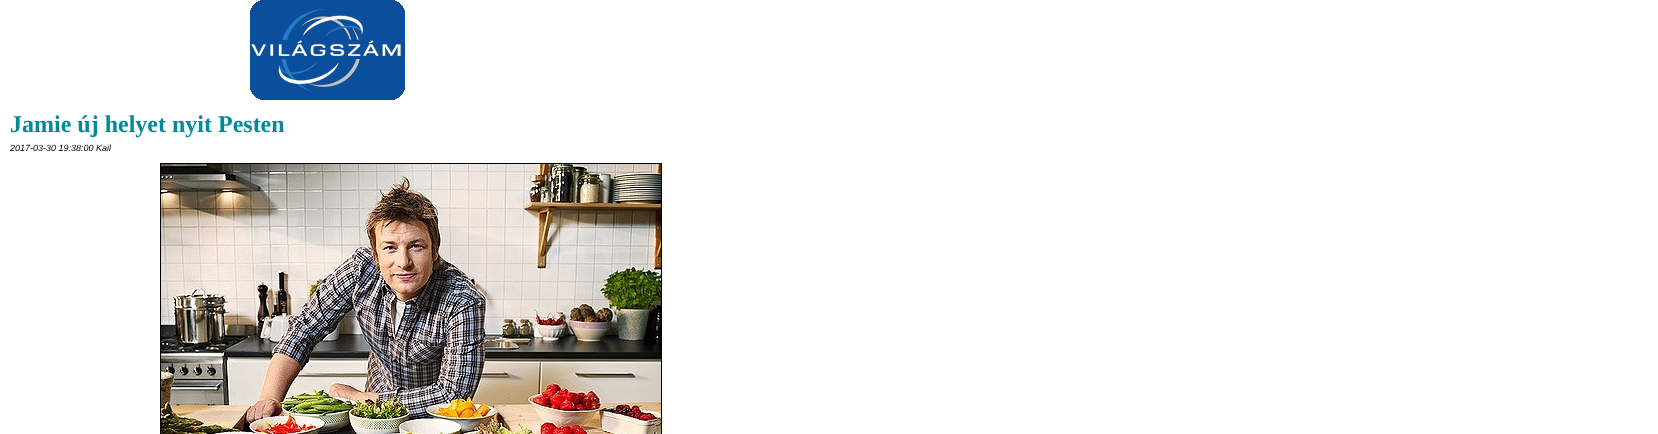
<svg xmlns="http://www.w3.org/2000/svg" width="1658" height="434">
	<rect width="100%" height="100%" fill="#FFFFFF" />
	<image x="250" y="0" width="155" height="100" href="assets/img1.png" />
	<text x="10" y="132" font-family="Liberation Serif" font-size="24" font-weight="700" fill="#03889C">Jamie új helyet nyit Pesten</text>
	<text x="10" y="151" font-family="Liberation Sans" font-size="9" font-style="italic" fill="#000000">2017-03-30 19:38:00 Kail</text>
	<rect x="160.5" y="163.5" width="501" height="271" fill="none" stroke="#000000" />
	<image x="161" y="164" width="500" height="270" href="assets/img2.png" />
</svg>
